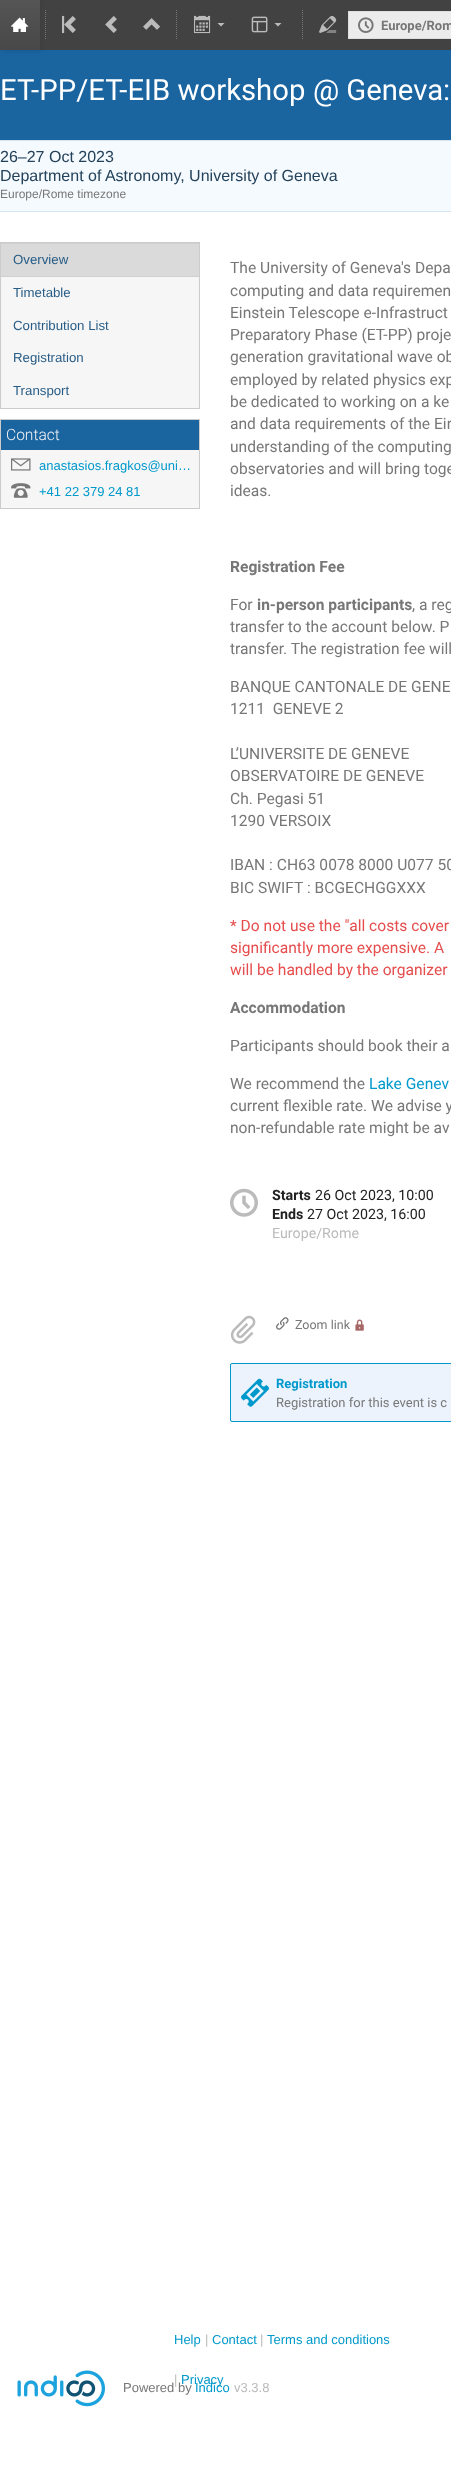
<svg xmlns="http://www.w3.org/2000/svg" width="451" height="2466">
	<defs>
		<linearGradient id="g1" gradientUnits="userSpaceOnUse" x1="20" y1="0" x2="20" y2="50"><stop offset="0" stop-color="#555555" /><stop offset="1" stop-color="#484848" /></linearGradient>
	</defs>
	<rect width="100%" height="100%" fill="#FFFFFF" />
	<rect x="40" y="0" width="411" height="50" fill="#424242" />
	<rect x="0" y="50" width="451" height="90" fill="#1A64A0" />
	<rect x="1" y="1" width="40" height="50" fill="#141414" fill-opacity="0.1" filter="blur(2px)" />
	<rect x="0" y="0" width="40" height="50" fill="url(#g1)" />
	<image x="11" y="17" width="18" height="15" href="assets/img1.png" />
	<path d="M45.5 10V40" fill="none" stroke="#777777" stroke-dasharray="1 1" />
	<image x="62" y="15" width="14" height="19" href="assets/img2.png" />
	<image x="105" y="16" width="12" height="17" href="assets/img3.png" />
	<image x="143" y="18" width="17" height="12" href="assets/img4.png" />
	<path d="M176.5 10V40" fill="none" stroke="#777777" stroke-dasharray="1 1" />
	<image x="194" y="15" width="17" height="19" href="assets/img5.png" />
	<path d="M217.5 23L221 26.5L224.5 23Z" fill="#BBBBBB" />
	<image x="251" y="16" width="17" height="17" href="assets/img6.png" />
	<path d="M274.5 23L278 26.5L281.5 23Z" fill="#BBBBBB" />
	<path d="M302.5 10V40" fill="none" stroke="#777777" stroke-dasharray="1 1" />
	<image x="319" y="16" width="18" height="17" href="assets/img7.png" />
	<rect x="349" y="12" width="102" height="26" fill="#ECECEC" />
	<rect x="348" y="11" width="103" height="1" fill="#DFDFDF" />
	<rect x="348" y="38" width="103" height="1" fill="#DFDFDF" />
	<rect x="348" y="11" width="1" height="28" fill="#DFDFDF" />
	<image x="358" y="17" width="16" height="16" href="assets/img8.png" />
	<text x="381" y="30" font-family="Roboto" font-size="13" font-weight="700" fill="#777777">Europe/Rom</text>
	<text x="0" y="100" font-family="Roboto" font-size="29.3" fill="#FFFFFF">ET-PP/ET-EIB workshop @ Geneva:</text>
	<rect x="0" y="141" width="451" height="70" fill="#F5FAFF" />
	<rect x="0" y="140" width="451" height="1" fill="#D5E4F1" />
	<rect x="0" y="211" width="451" height="1" fill="#D5E4F1" />
	<g font-family="Liberation Sans" font-size="16" fill="#24425A">
		<text x="0" y="162">26–27 Oct 2023</text>
		<text x="0" y="181">Department of Astronomy, University of Geneva</text>
	</g>
	<text x="0" y="198" font-family="Liberation Sans" font-size="12" fill="#777777">Europe/Rome timezone</text>
	<rect x="1" y="277" width="198" height="131" fill="#F6F6F6" />
	<rect x="0.5" y="242.5" width="199" height="166" fill="none" stroke="#CCCCCC" />
	<rect x="1" y="244" width="198" height="32" fill="#DADADA" />
	<rect x="1" y="243" width="198" height="1" fill="#D0D0D0" />
	<rect x="1" y="276" width="198" height="1" fill="#D0D0D0" />
	<g font-family="'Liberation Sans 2'" font-size="13.25" fill="#275C86">
		<text x="13" y="264">Overview</text>
		<text x="13" y="297">Timetable</text>
		<text x="13" y="330">Contribution List</text>
		<text x="13" y="362">Registration</text>
		<text x="13" y="395">Transport</text>
	</g>
	<rect x="1" y="450" width="198" height="58" fill="#F6F6F6" />
	<rect x="0.5" y="419.5" width="199" height="89" fill="none" stroke="#CCCCCC" />
	<rect x="1" y="420" width="198" height="30" fill="#1A64A0" />
	<text x="6" y="440" font-family="Roboto" font-size="15.6" font-weight="300" fill="#F3F3F3">Contact</text>
	<image x="11" y="458" width="20" height="13" href="assets/img9.png" />
	<text x="39" y="470" font-family="Liberation Sans" font-size="13" fill="#0099CC">anastasios.fragkos@uni…</text>
	<image x="11" y="483" width="20" height="15" href="assets/img10.png" />
	<text x="39" y="496" font-family="Liberation Sans" font-size="13" fill="#0099CC">+41 22 379 24 81</text>
	<g font-family="Roboto" font-size="15.6" fill="#777777">
		<text x="230" y="273">The University of Geneva's Depa</text>
		<text x="230" y="296">computing and data requiremen</text>
		<text x="230" y="318">Einstein Telescope e-Infrastruct</text>
		<text x="230" y="340">Preparatory Phase (ET-PP) proje</text>
		<text x="230" y="362">generation gravitational wave ob</text>
		<text x="230" y="385">employed by related physics exp</text>
		<text x="230" y="407">be dedicated to working on a ke</text>
		<text x="230" y="429">and data requirements of the Ein</text>
		<text x="230" y="452">understanding of the computing</text>
		<text x="230" y="474">observatories and will bring toge</text>
		<text x="230" y="496">ideas.</text>
	</g>
	<text x="230" y="572" font-family="Roboto" font-size="15.6" font-weight="700" fill="#777777">Registration Fee</text>
	<text x="230" y="610" font-family="Roboto" font-size="15.6" fill="#777777">For</text>
	<text x="257" y="610" font-family="Roboto" font-size="15.6" font-weight="700" fill="#777777">in-person participants</text>
	<g font-family="Roboto" font-size="15.6" fill="#777777">
		<text x="412" y="610">, a reg</text>
		<text x="230" y="632">transfer to the account below. P</text>
		<text x="230" y="654">transfer. The registration fee will</text>
		<text x="230" y="692">BANQUE CANTONALE DE GENE</text>
		<text x="230" y="714" xml:space="preserve">1211  GENEVE 2</text>
		<text x="230" y="759">L’UNIVERSITE DE GENEVE</text>
		<text x="230" y="781">OBSERVATOIRE DE GENEVE</text>
		<text x="230" y="804">Ch. Pegasi 51</text>
		<text x="230" y="826">1290 VERSOIX</text>
		<text x="230" y="870">IBAN : CH63 0078 8000 U077 50</text>
		<text x="230" y="893">BIC SWIFT : BCGECHGGXXX</text>
	</g>
	<g font-family="Roboto" font-size="15.6" fill="#E64D4D">
		<text x="230" y="931">* Do not use the "all costs cover</text>
		<text x="230" y="953">significantly more expensive. A</text>
		<text x="230" y="975">will be handled by the organizer</text>
	</g>
	<text x="230" y="1013" font-family="Roboto" font-size="15.6" font-weight="700" fill="#777777">Accommodation</text>
	<g font-family="Roboto" font-size="15.6" fill="#777777">
		<text x="230" y="1051">Participants should book their a</text>
		<text x="230" y="1089">We recommend the</text>
	</g>
	<text x="369" y="1089" font-family="Roboto" font-size="15.6" fill="#0099CC">Lake Genev</text>
	<g font-family="Roboto" font-size="15.6" fill="#777777">
		<text x="230" y="1111">current flexible rate. We advise y</text>
		<text x="230" y="1133">non-refundable rate might be av</text>
	</g>
	<image x="230" y="1188" width="28" height="29" href="assets/img11.png" />
	<text x="272" y="1200" font-family="Roboto" font-size="14.25" font-weight="700" fill="#212121">Starts</text>
	<text x="315" y="1200" font-family="Roboto" font-size="14.25" fill="#212121">26 Oct 2023, 10:00</text>
	<text x="272" y="1219" font-family="Roboto" font-size="14.25" font-weight="700" fill="#212121">Ends</text>
	<text x="307" y="1219" font-family="Roboto" font-size="14.25" fill="#212121">27 Oct 2023, 16:00</text>
	<text x="272" y="1238" font-family="Roboto" font-size="14.25" fill="#BBBBBB">Europe/Rome</text>
	<image x="230" y="1315" width="26" height="29" href="assets/img12.png" />
	<image x="276" y="1317" width="13" height="13" href="assets/img13.png" />
	<text x="295" y="1329" font-family="Roboto" font-size="12.5" fill="#777777">Zoom link</text>
	<image x="355" y="1319" width="9" height="12" href="assets/img14.png" />
	<rect x="230.5" y="1363.5" width="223" height="58" rx="1.5" fill="#EDF3FD" stroke="#0099CC" />
	<image x="241" y="1378" width="28" height="29" href="assets/img15.png" />
	<text x="276" y="1388" font-family="Roboto" font-size="13" font-weight="700" fill="#0099CC">Registration</text>
	<text x="276" y="1407" font-family="Roboto" font-size="13" fill="#777777">Registration for this event is c</text>
	<text x="174" y="2344" font-family="Liberation Sans" font-size="13" fill="#0099CC">Help</text>
	<text x="205" y="2344" font-family="Liberation Sans" font-size="13" fill="#BBBBBB">|</text>
	<text x="212" y="2344" font-family="Liberation Sans" font-size="13" fill="#0099CC">Contact</text>
	<text x="260" y="2344" font-family="Liberation Sans" font-size="13" fill="#BBBBBB">|</text>
	<text x="267" y="2344" font-family="Liberation Sans" font-size="13" fill="#0099CC">Terms and conditions</text>
	<text x="174" y="2384" font-family="Liberation Sans" font-size="13" fill="#BBBBBB">|</text>
	<g font-family="Liberation Sans" font-size="13" fill="#0099CC">
		<text x="195" y="2392">Indico</text>
		<text x="181" y="2384">Privacy</text>
	</g>
	<image x="17" y="2370" width="88" height="37" href="assets/img16.png" />
	<text x="123" y="2392" font-family="Liberation Sans" font-size="13" fill="#777777">Powered by</text>
	<text x="234" y="2392" font-family="Liberation Sans" font-size="13" fill="#BBBBBB">v3.3.8</text>
</svg>
